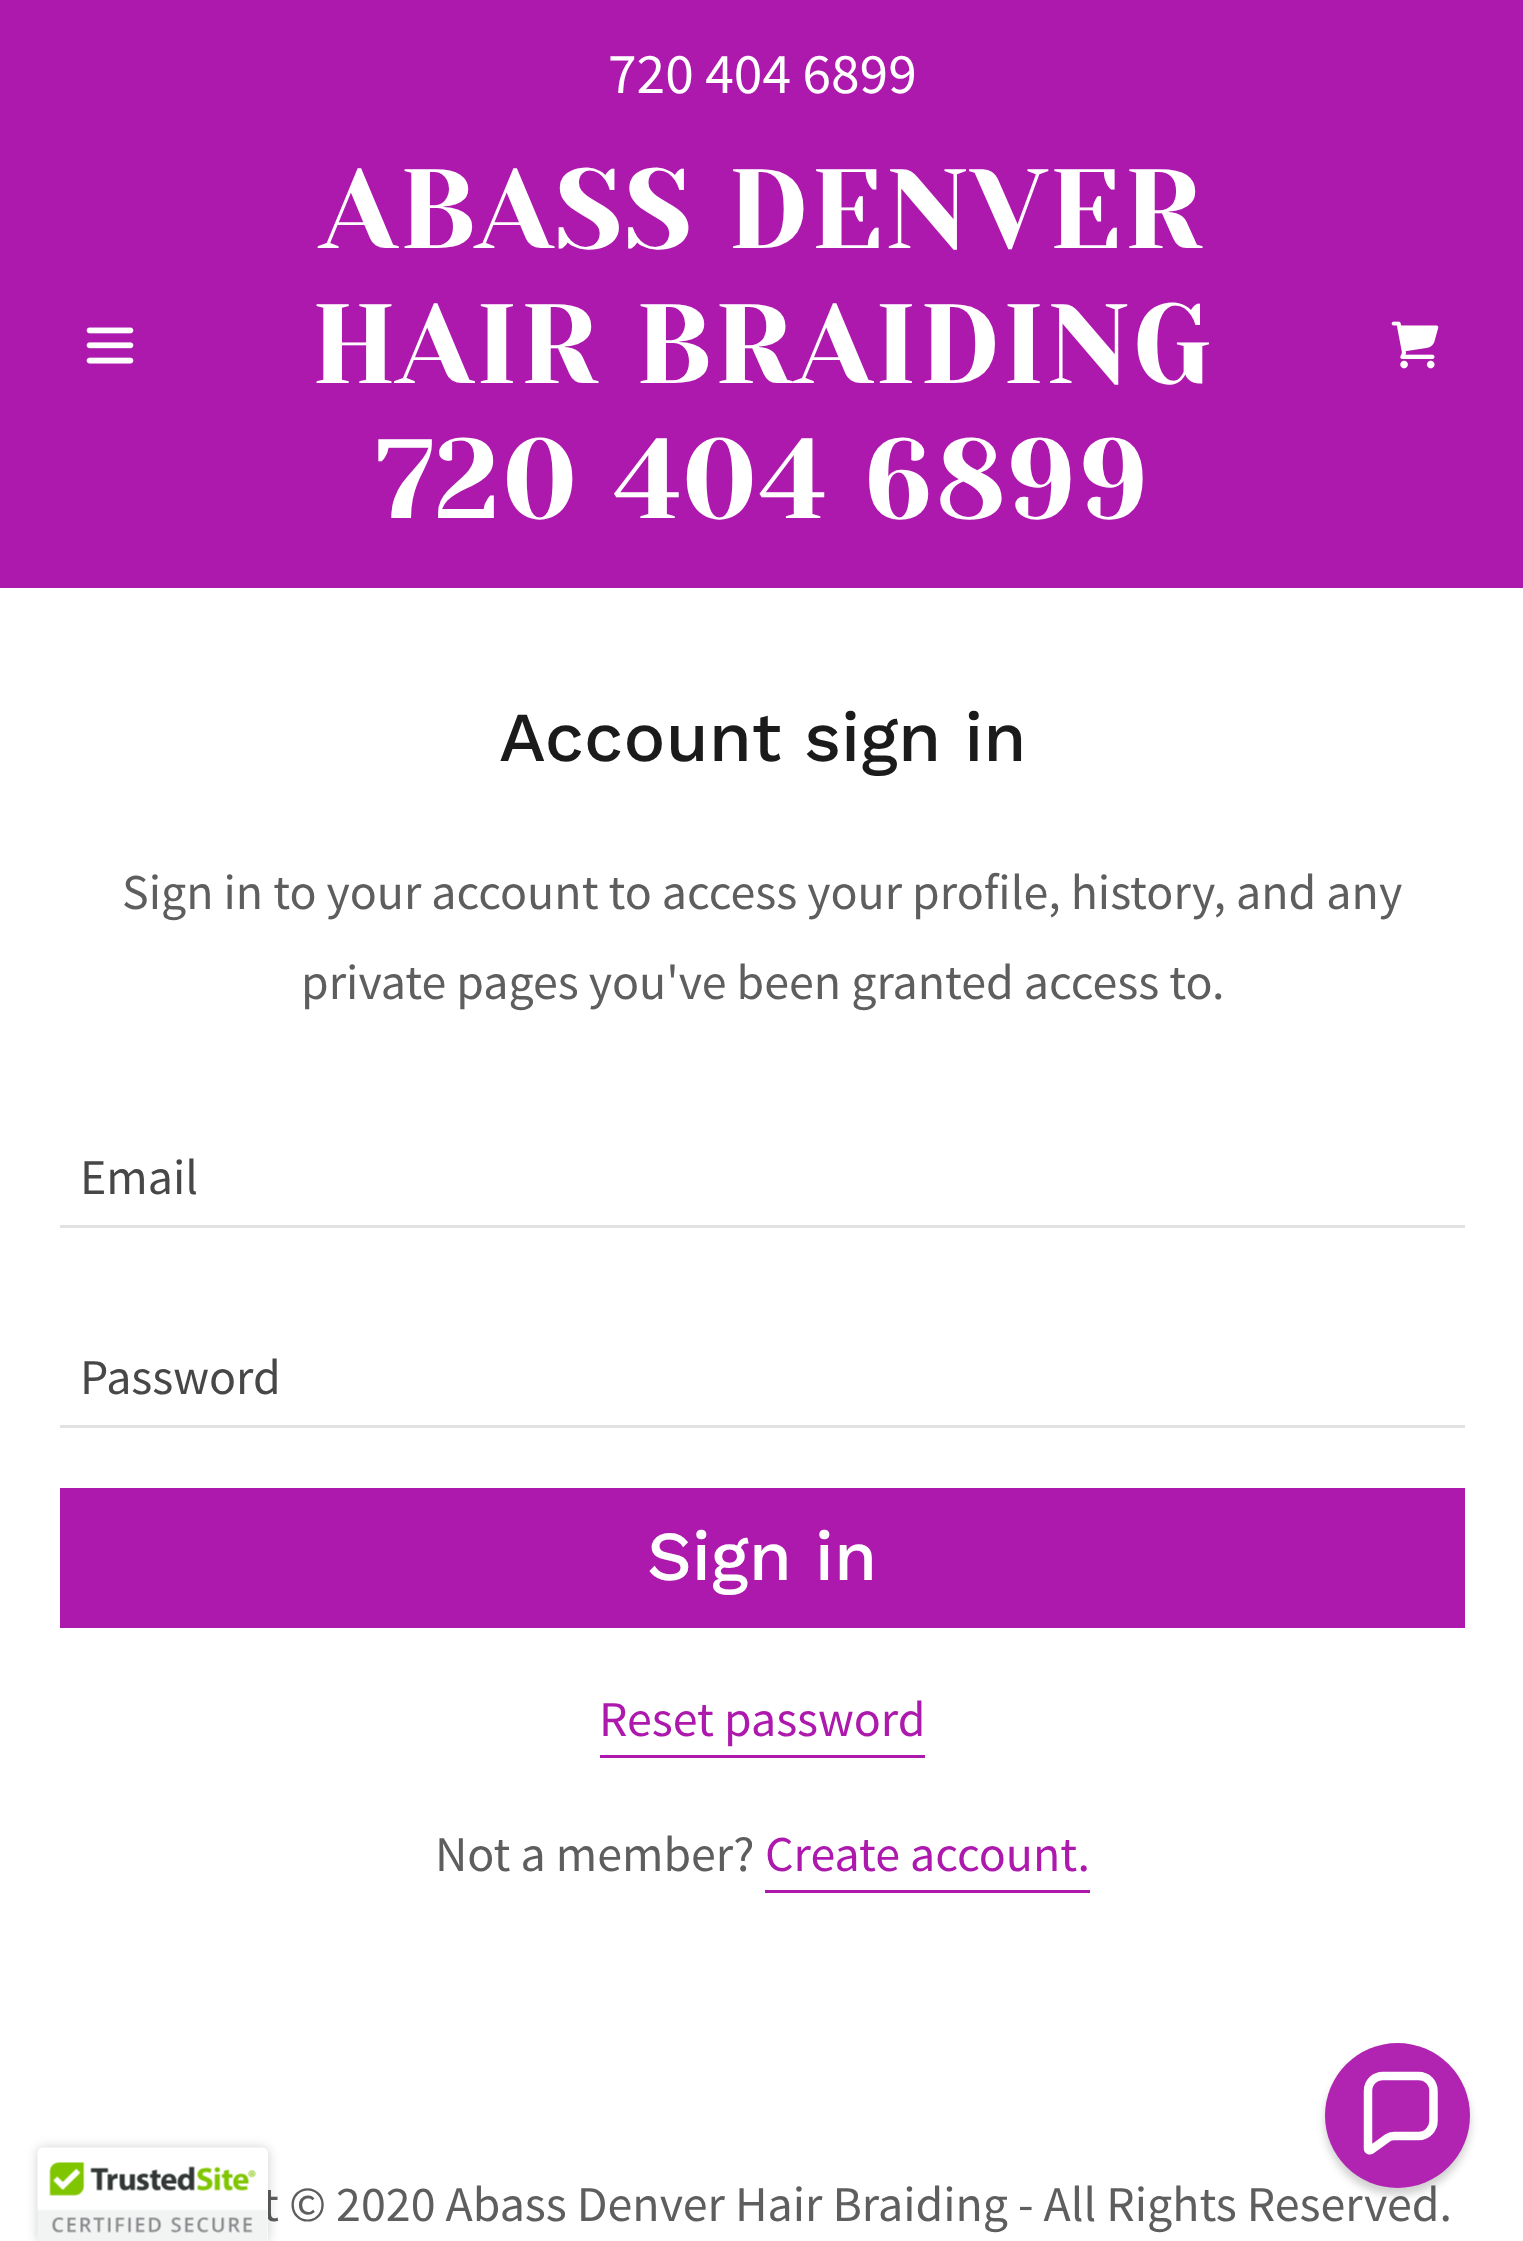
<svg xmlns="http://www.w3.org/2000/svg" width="1523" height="2241">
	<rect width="100%" height="100%" fill="#FFFFFF" />
	<rect x="0" y="0" width="1523" height="588" fill="#AD18AD" />
	<text x="608" y="93" font-family="Source Sans Pro" font-size="57.5" fill="#FFFFFF">720 404 6899</text>
	<image x="86" y="327" width="48" height="37" href="assets/img1.png" />
	<g font-family="Yeseva One" font-size="112.5" letter-spacing="2.5" fill="#FFFFFF">
		<text x="320" y="248">ABASS DENVER</text>
		<text x="311" y="383">HAIR BRAIDING</text>
		<text x="375" y="518">720 404 6899</text>
	</g>
	<image x="1391" y="321" width="48" height="48" href="assets/img2.png" />
	<text x="499" y="761" font-family="Work Sans" font-size="70" font-weight="500" fill="#1B1B1B">Account sign in</text>
	<g font-family="Source Sans Pro" font-size="50" fill="#5E5E5E">
		<text x="122" y="909">Sign in to your account to access your profile, history, and any</text>
		<text x="301" y="999">private pages you've been granted access to.</text>
	</g>
	<rect x="60" y="1225" width="1405" height="3" fill="#E2E2E2" />
	<text x="80" y="1194" font-family="Source Sans Pro" font-size="50" fill="#474747">Email</text>
	<rect x="60" y="1425" width="1405" height="3" fill="#E2E2E2" />
	<text x="80" y="1394" font-family="Source Sans Pro" font-size="50" fill="#474747">Password</text>
	<rect x="60" y="1488" width="1405" height="140" fill="#AD18AD" />
	<text x="647" y="1580" font-family="Work Sans" font-size="70" font-weight="500" fill="#FFFFFF">Sign in</text>
	<text x="599" y="1736" font-family="Source Sans Pro" font-size="50" fill="#AD18AD">Reset password</text>
	<rect x="600" y="1755" width="325" height="3" fill="#AD18AD" />
	<text x="435" y="1871" font-family="Source Sans Pro" font-size="50" fill="#5E5E5E">Not a member?</text>
	<text x="765" y="1871" font-family="Source Sans Pro" font-size="50" fill="#AD18AD">Create account.</text>
	<rect x="765" y="1890" width="325" height="3" fill="#AD18AD" />
	<text x="262" y="2221" font-family="Source Sans Pro" font-size="50" fill="#5E5E5E">t © 2020 Abass Denver Hair Braiding - All Rights Reserved.</text>
	<rect x="38" y="2148" width="230" height="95" rx="5" fill="#000000" fill-opacity="0.2" filter="blur(6px)" />
	<path d="M43 2148H263C266 2148 268 2150 268 2153V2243H38V2153C38 2150 40 2148 43 2148Z" fill="#FFFFFF" />
	<image x="37" y="2147" width="231" height="94" href="assets/img3.png" />
	<rect x="1325" y="2050" width="145" height="145" rx="72.5" fill="#000000" fill-opacity="0.19" filter="blur(4px)" />
	<circle cx="1397.5" cy="2115.5" r="72.5" fill="#B124B1" />
	<path d="M1418.5 2076H1383C1374.5 2076 1368 2082.5 1368 2091V2148.5C1368 2150 1369.5 2150.5 1371 2150L1387.5 2138C1389.5 2136.5 1391.5 2136 1394 2136H1418.5C1427 2136 1433.5 2129 1433.5 2121V2091C1433.5 2082.5 1427 2076 1418.5 2076Z" fill="none" stroke="#FFFFFF" stroke-width="8.5" />
</svg>
